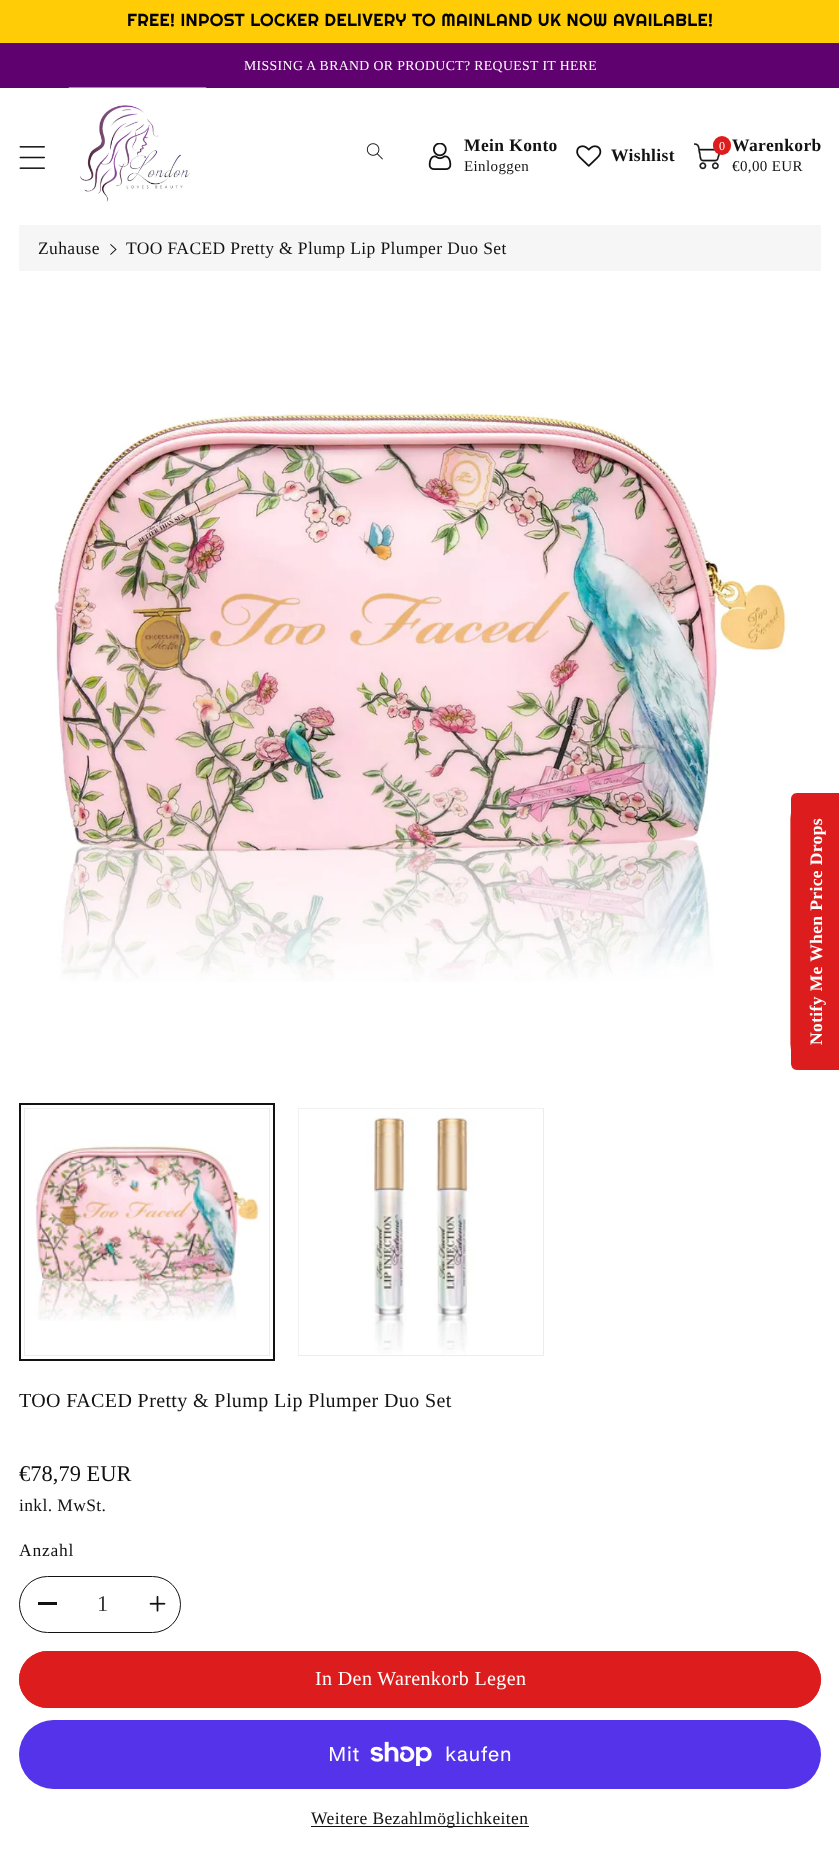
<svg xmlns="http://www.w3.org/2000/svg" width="839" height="1862">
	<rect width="100%" height="100%" fill="#FFFFFF" />
	<rect x="0" y="0" width="839" height="43" fill="#FFCC05" />
	<text x="127" y="26" font-family="Righteous" font-size="17.5" letter-spacing="0.38" fill="#020202">FREE! INPOST LOCKER DELIVERY TO MAINLAND UK NOW AVAILABLE!</text>
	<rect x="0" y="43" width="839" height="45" fill="#600170" />
	<text x="244" y="70" font-family="Liberation Serif" font-size="13.75" letter-spacing="0.38" fill="#FFFFFF">MISSING A BRAND OR PRODUCT? REQUEST IT HERE</text>
	<image x="19" y="146" width="26" height="23" href="assets/img1.png" />
	<image x="68" y="87" width="139" height="115" href="assets/img2.png" />
	<image x="366" y="143" width="17" height="17" href="assets/img3.png" />
	<image x="428" y="143" width="24" height="27" href="assets/img4.png" />
	<text x="464" y="151" font-family="Liberation Serif" font-size="17.5" font-weight="700" letter-spacing="0.38" fill="#121212">Mein Konto</text>
	<text x="464" y="171" font-family="Liberation Serif" font-size="15" letter-spacing="0.38" fill="#121212">Einloggen</text>
	<image x="576" y="145" width="26" height="22" href="assets/img5.png" />
	<text x="611" y="161" font-family="Liberation Serif" font-size="17.5" font-weight="700" letter-spacing="0.38" fill="#121212">Wishlist</text>
	<image x="694" y="143" width="26" height="27" href="assets/img6.png" />
	<rect x="713" y="136" width="18" height="19" rx="9" fill="#DD1D1D" />
	<text x="719" y="150" font-family="Liberation Serif" font-size="12" letter-spacing="0.38" fill="#FFFFFF">0</text>
	<text x="732" y="151" font-family="Liberation Serif" font-size="17.5" font-weight="700" letter-spacing="0.38" fill="#121212">Warenkorb</text>
	<text x="732" y="171" font-family="Liberation Serif" font-size="15" letter-spacing="0.38" fill="#121212">€0,00 EUR</text>
	<rect x="19" y="225" width="802" height="46" fill="#F6F6F6" />
	<text x="38" y="254" font-family="Liberation Serif" font-size="17.5" letter-spacing="0.38" fill="#121212">Zuhause</text>
	<image x="110" y="244" width="7" height="11" href="assets/img7.png" />
	<text x="126" y="254" font-family="Liberation Serif" font-size="17.5" letter-spacing="0.38" fill="#121212">TOO FACED Pretty &amp; Plump Lip Plumper Duo Set</text>
	<path d="M791 1063V799C791 796 793 793 797 793H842V1070H797C793 1070 791 1067 791 1063Z" fill="#DD1D1D" />
	<text x="822" y="1045" transform="rotate(-90 822 1045)" font-family="Liberation Serif" font-size="17.5" font-weight="700" letter-spacing="0.38" fill="#FFFFFF">Notify Me When Price Drops</text>
	<path d="M791 1044V818.5C791 804.5 802.5 793.5 816 793.5C830 793.5 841 804.5 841 818.5V1044C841 1058 830 1069 816 1069C802.5 1069 791 1058 791 1044Z" fill="none" stroke="#DD1D1D" stroke-width="1.2" />
	<image x="54" y="412" width="735" height="570" href="assets/img8.png" />
	<rect x="20" y="1104" width="254" height="256" fill="none" stroke="#121212" stroke-width="2" />
	<rect x="24.5" y="1108.5" width="245" height="247" fill="none" stroke="#ECECEC" />
	<image x="25" y="1108" width="243" height="213" href="assets/img9.png" />
	<rect x="298.5" y="1108.5" width="245" height="247" fill="none" stroke="#ECECEC" />
	<image x="298" y="1108" width="244" height="247" href="assets/img10.png" />
	<text x="19" y="1407" font-family="Liberation Serif" font-size="20" letter-spacing="0.38" fill="#121212">TOO FACED Pretty &amp; Plump Lip Plumper Duo Set</text>
	<text x="19" y="1481" font-family="Liberation Serif" font-size="22.5" fill="#121212">€78,79 EUR</text>
	<text x="19" y="1511" font-family="Liberation Serif" font-size="17.5" letter-spacing="0.38" fill="#121212">inkl. MwSt.</text>
	<text x="19" y="1556" font-family="Liberation Serif" font-size="17.5" letter-spacing="0.75" fill="#121212">Anzahl</text>
	<rect x="38" y="1602" width="19" height="3" fill="#121212" />
	<image x="149" y="1595" width="17" height="17" href="assets/img11.png" />
	<rect x="19.5" y="1576.5" width="161" height="56" rx="28" fill="none" stroke="#121212" />
	<text x="97" y="1611" font-family="Liberation Serif" font-size="22.5" fill="#363636">1</text>
	<rect x="19" y="1651" width="802" height="57" rx="28.5" fill="#DD1D1D" />
	<rect x="19.5" y="1651.5" width="801" height="56" rx="28" fill="none" stroke="#DD1D1D" />
	<text x="315" y="1685" font-family="Liberation Serif" font-size="20" letter-spacing="0.38" fill="#FFFFFF">In Den Warenkorb Legen</text>
	<rect x="19" y="1720" width="802" height="69" rx="34.5" fill="#5433EB" />
	<text x="328" y="1761" font-family="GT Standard" font-size="20" letter-spacing="0.38" fill="#FFFFFF">Mit</text>
	<image x="370" y="1741" width="62" height="25" href="assets/img12.png" />
	<text x="445" y="1761" font-family="GT Standard" font-size="20" letter-spacing="0.38" fill="#FFFFFF">kaufen</text>
	<rect x="311" y="1826" width="218" height="1" fill="#121212" />
	<text x="311" y="1824" font-family="Liberation Serif" font-size="17.5" letter-spacing="0.38" fill="#121212">Weitere Bezahlmöglichkeiten</text>
</svg>
